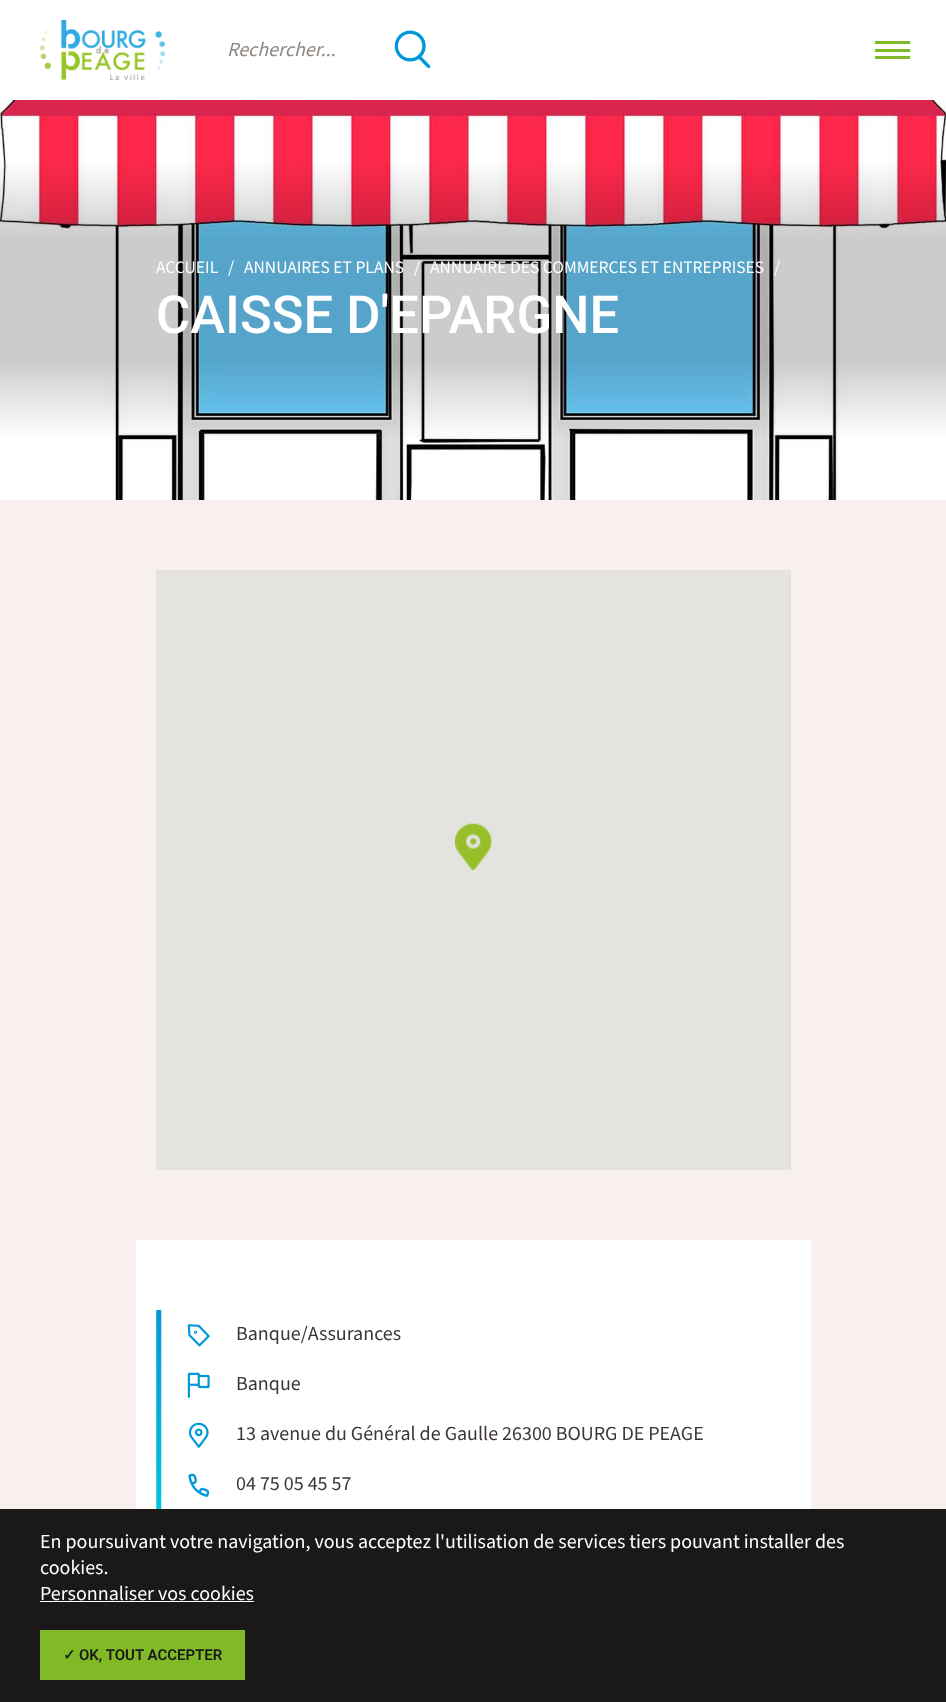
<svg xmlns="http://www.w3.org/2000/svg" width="946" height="1702">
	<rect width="100%" height="100%" fill="#F7F0EE" />
	<rect x="0" y="0" width="946" height="100" fill="#FFFFFF" />
	<image x="40" y="20" width="125" height="60" href="assets/img1.png" />
	<text x="227" y="56" font-family="Mada" font-size="20" font-style="italic" fill="#8D8681">Rechercher...</text>
	<image x="394" y="30" width="37" height="39" href="assets/img2.png" />
	<rect x="875" y="41" width="35" height="3" fill="#80BA27" />
	<rect x="875" y="49" width="35" height="3" fill="#80BA27" />
	<rect x="875" y="56" width="35" height="3" fill="#80BA27" />
	<image x="0" y="100" width="946" height="400" href="assets/img3.png" />
	<g font-family="Mada" font-size="17.5" fill="#FFFFFF">
		<text x="156" y="273">ACCUEIL</text>
		<text x="228" y="273">/</text>
		<text x="244" y="273">ANNUAIRES ET PLANS</text>
		<text x="414" y="273">/</text>
		<text x="430" y="273">ANNUAIRE DES COMMERCES ET ENTREPRISES</text>
		<text x="774" y="273">/</text>
	</g>
	<text x="156" y="333" font-family="Roboto" font-size="52.5" font-weight="500" fill="#FFFFFF">CAISSE D'EPARGNE</text>
	<rect x="156" y="570" width="635" height="600" fill="#E5E3DF" />
	<image x="455" y="823" width="37" height="47" href="assets/img4.png" />
	<rect x="136" y="1240" width="675" height="269" fill="#FFFFFF" />
	<image x="156" y="1310" width="6" height="199" href="assets/img5.png" />
	<image x="187" y="1324" width="23" height="23" href="assets/img6.png" />
	<text x="236" y="1340" font-family="Mada" font-size="20" fill="#3C3633">Banque/Assurances</text>
	<image x="187" y="1372" width="23" height="26" href="assets/img7.png" />
	<text x="236" y="1390" font-family="Mada" font-size="20" fill="#3C3633">Banque</text>
	<image x="188" y="1422" width="21" height="26" href="assets/img8.png" />
	<text x="236" y="1440" font-family="Mada" font-size="20" fill="#3C3633">13 avenue du Général de Gaulle 26300 BOURG DE PEAGE</text>
	<image x="188" y="1473" width="22" height="24" href="assets/img9.png" />
	<text x="236" y="1490" font-family="Mada" font-size="20" fill="#3C3633">04 75 05 45 57</text>
	<rect x="0" y="1509" width="946" height="193" fill="#1B1917" />
	<g font-family="Mada" font-size="20" fill="#FFFFFF">
		<text x="40" y="1548">En poursuivant votre navigation, vous acceptez l'utilisation de services tiers pouvant installer des</text>
		<text x="40" y="1574">cookies.</text>
		<text x="40" y="1600">Personnaliser vos cookies</text>
	</g>
	<rect x="40" y="1601" width="214" height="1" fill="#FFFFFF" />
	<rect x="40" y="1630" width="205" height="50" fill="#80BA27" />
	<text x="63" y="1660" font-family="DejaVu Sans" font-size="15" font-weight="700" fill="#1B1917">✓</text>
	<text x="79" y="1660" font-family="Roboto" font-size="15" font-weight="600" fill="#1B1917">OK, TOUT ACCEPTER</text>
</svg>
